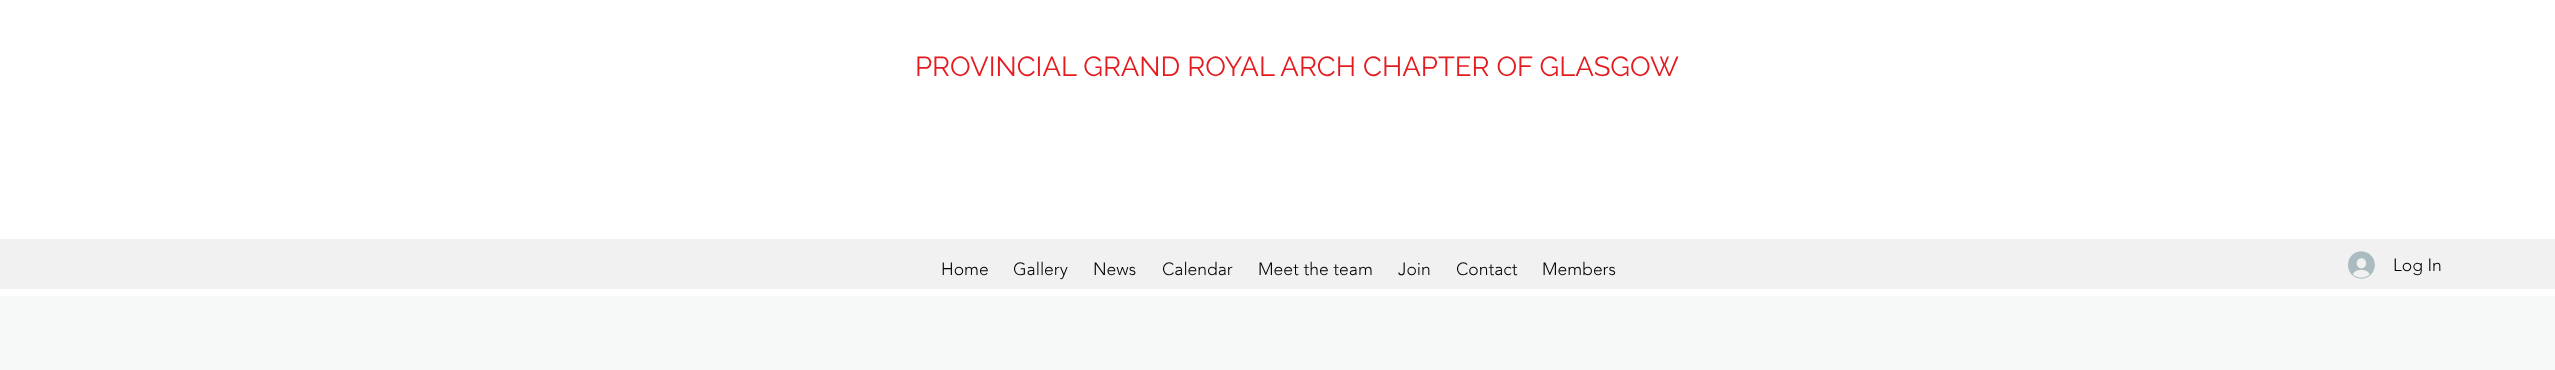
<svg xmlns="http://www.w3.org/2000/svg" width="2555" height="370">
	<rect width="100%" height="100%" fill="#FFFFFF" />
	<text x="915" y="76" font-family="Raleway" font-size="27.5" fill="#E21C21">PROVINCIAL GRAND ROYAL ARCH CHAPTER OF GLASGOW</text>
	<rect x="0" y="239" width="2555" height="50" fill="#F1F1F1" />
	<g font-family="'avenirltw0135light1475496'" font-size="17.5" font-weight="300" fill="#000000">
		<text x="941" y="275">Home</text>
		<text x="1013" y="275">Gallery</text>
		<text x="1093" y="275">News</text>
		<text x="1162" y="275">Calendar</text>
		<text x="1258" y="275">Meet the team</text>
		<text x="1398" y="275">Join</text>
		<text x="1456" y="275">Contact</text>
		<text x="1542" y="275">Members</text>
	</g>
	<image x="2348" y="251" width="27" height="28" href="assets/img1.png" />
	<text x="2393" y="271" font-family="'avenirltw0135light1475496'" font-size="17.5" font-weight="300" fill="#000000">Log In</text>
	<rect x="0" y="296" width="2555" height="74" fill="#F7F9F9" />
</svg>
